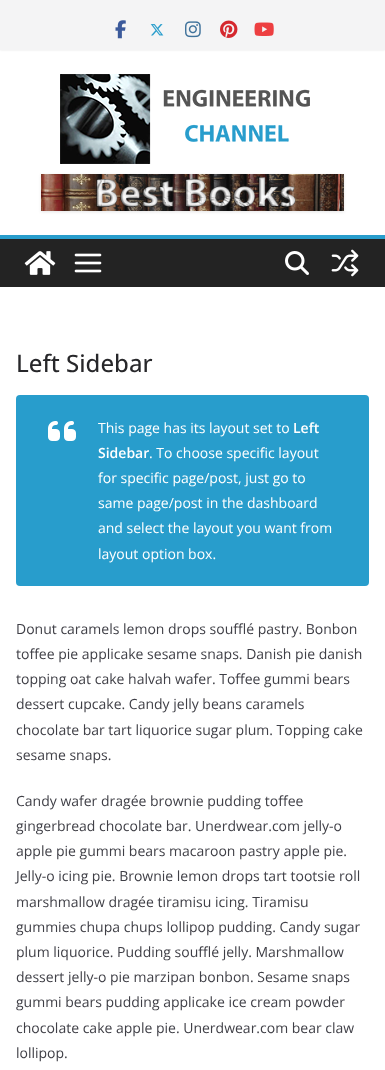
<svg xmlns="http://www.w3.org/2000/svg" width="385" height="1070">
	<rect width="100%" height="100%" fill="#FFFFFF" />
	<rect x="0" y="0" width="385" height="50" fill="#000000" fill-opacity="0.1" filter="blur(1px)" />
	<rect x="0" y="0" width="385" height="50" fill="#F4F4F5" />
	<image x="115" y="20" width="11" height="19" href="assets/img1.png" />
	<image x="150" y="24" width="14" height="12" href="assets/img2.png" />
	<image x="185" y="21" width="16" height="17" href="assets/img3.png" />
	<image x="220" y="20" width="18" height="18" href="assets/img4.png" />
	<image x="254" y="22" width="20" height="14" href="assets/img5.png" />
	<image x="60" y="74" width="250" height="90" href="assets/img6.png" />
	<rect x="41" y="175" width="303" height="37" fill="#000000" fill-opacity="0.1" filter="blur(1.5px)" />
	<image x="41" y="174" width="303" height="37" href="assets/img7.png" />
	<rect x="0" y="239" width="385" height="48" fill="#232323" />
	<rect x="0" y="235" width="385" height="4" fill="#289DCC" />
	<image x="24" y="251" width="32" height="24" href="assets/img8.png" />
	<image x="74" y="253" width="28" height="20" href="assets/img9.png" />
	<image x="285" y="251" width="24" height="24" href="assets/img10.png" />
	<image x="331" y="249" width="28" height="28" href="assets/img11.png" />
	<text x="16" y="372" font-family="Open Sans" font-size="24" font-weight="500" fill="#27272A">Left Sidebar</text>
	<rect x="16" y="395" width="353" height="191" rx="4" fill="#289DCC" />
	<image x="48" y="421" width="28" height="20" href="assets/img12.png" />
	<text x="98" y="433" font-family="Open Sans" font-size="14" fill="#FFFFFF">This page has its layout set to</text>
	<g font-family="Open Sans" font-size="14" font-weight="600" fill="#FFFFFF">
		<text x="293" y="433">Left</text>
		<text x="98" y="458">Sidebar</text>
	</g>
	<g font-family="Open Sans" font-size="14" fill="#FFFFFF">
		<text x="149" y="458">. To choose specific layout</text>
		<text x="98" y="483">for specific page/post, just go to</text>
		<text x="98" y="508">same page/post in the dashboard</text>
		<text x="98" y="533">and select the layout you want from</text>
		<text x="98" y="559">layout option box.</text>
	</g>
	<g font-family="Open Sans" font-size="14" fill="#3F3F46">
		<text x="16" y="634">Donut caramels lemon drops soufflé pastry. Bonbon</text>
		<text x="16" y="659">toffee pie applicake sesame snaps. Danish pie danish</text>
		<text x="16" y="684">topping oat cake halvah wafer. Toffee gummi bears</text>
		<text x="16" y="709">dessert cupcake. Candy jelly beans caramels</text>
		<text x="16" y="735">chocolate bar tart liquorice sugar plum. Topping cake</text>
		<text x="16" y="760">sesame snaps.</text>
		<text x="16" y="806">Candy wafer dragée brownie pudding toffee</text>
		<text x="16" y="831">gingerbread chocolate bar. Unerdwear.com jelly-o</text>
		<text x="16" y="856">apple pie gummi bears macaroon pastry apple pie.</text>
		<text x="16" y="881">Jelly-o icing pie. Brownie lemon drops tart tootsie roll</text>
		<text x="16" y="907">marshmallow dragée tiramisu icing. Tiramisu</text>
		<text x="16" y="932">gummies chupa chups lollipop pudding. Candy sugar</text>
		<text x="16" y="957">plum liquorice. Pudding soufflé jelly. Marshmallow</text>
		<text x="16" y="982">dessert jelly-o pie marzipan bonbon. Sesame snaps</text>
		<text x="16" y="1007">gummi bears pudding applicake ice cream powder</text>
		<text x="16" y="1033">chocolate cake apple pie. Unerdwear.com bear claw</text>
		<text x="16" y="1058">lollipop.</text>
	</g>
</svg>
